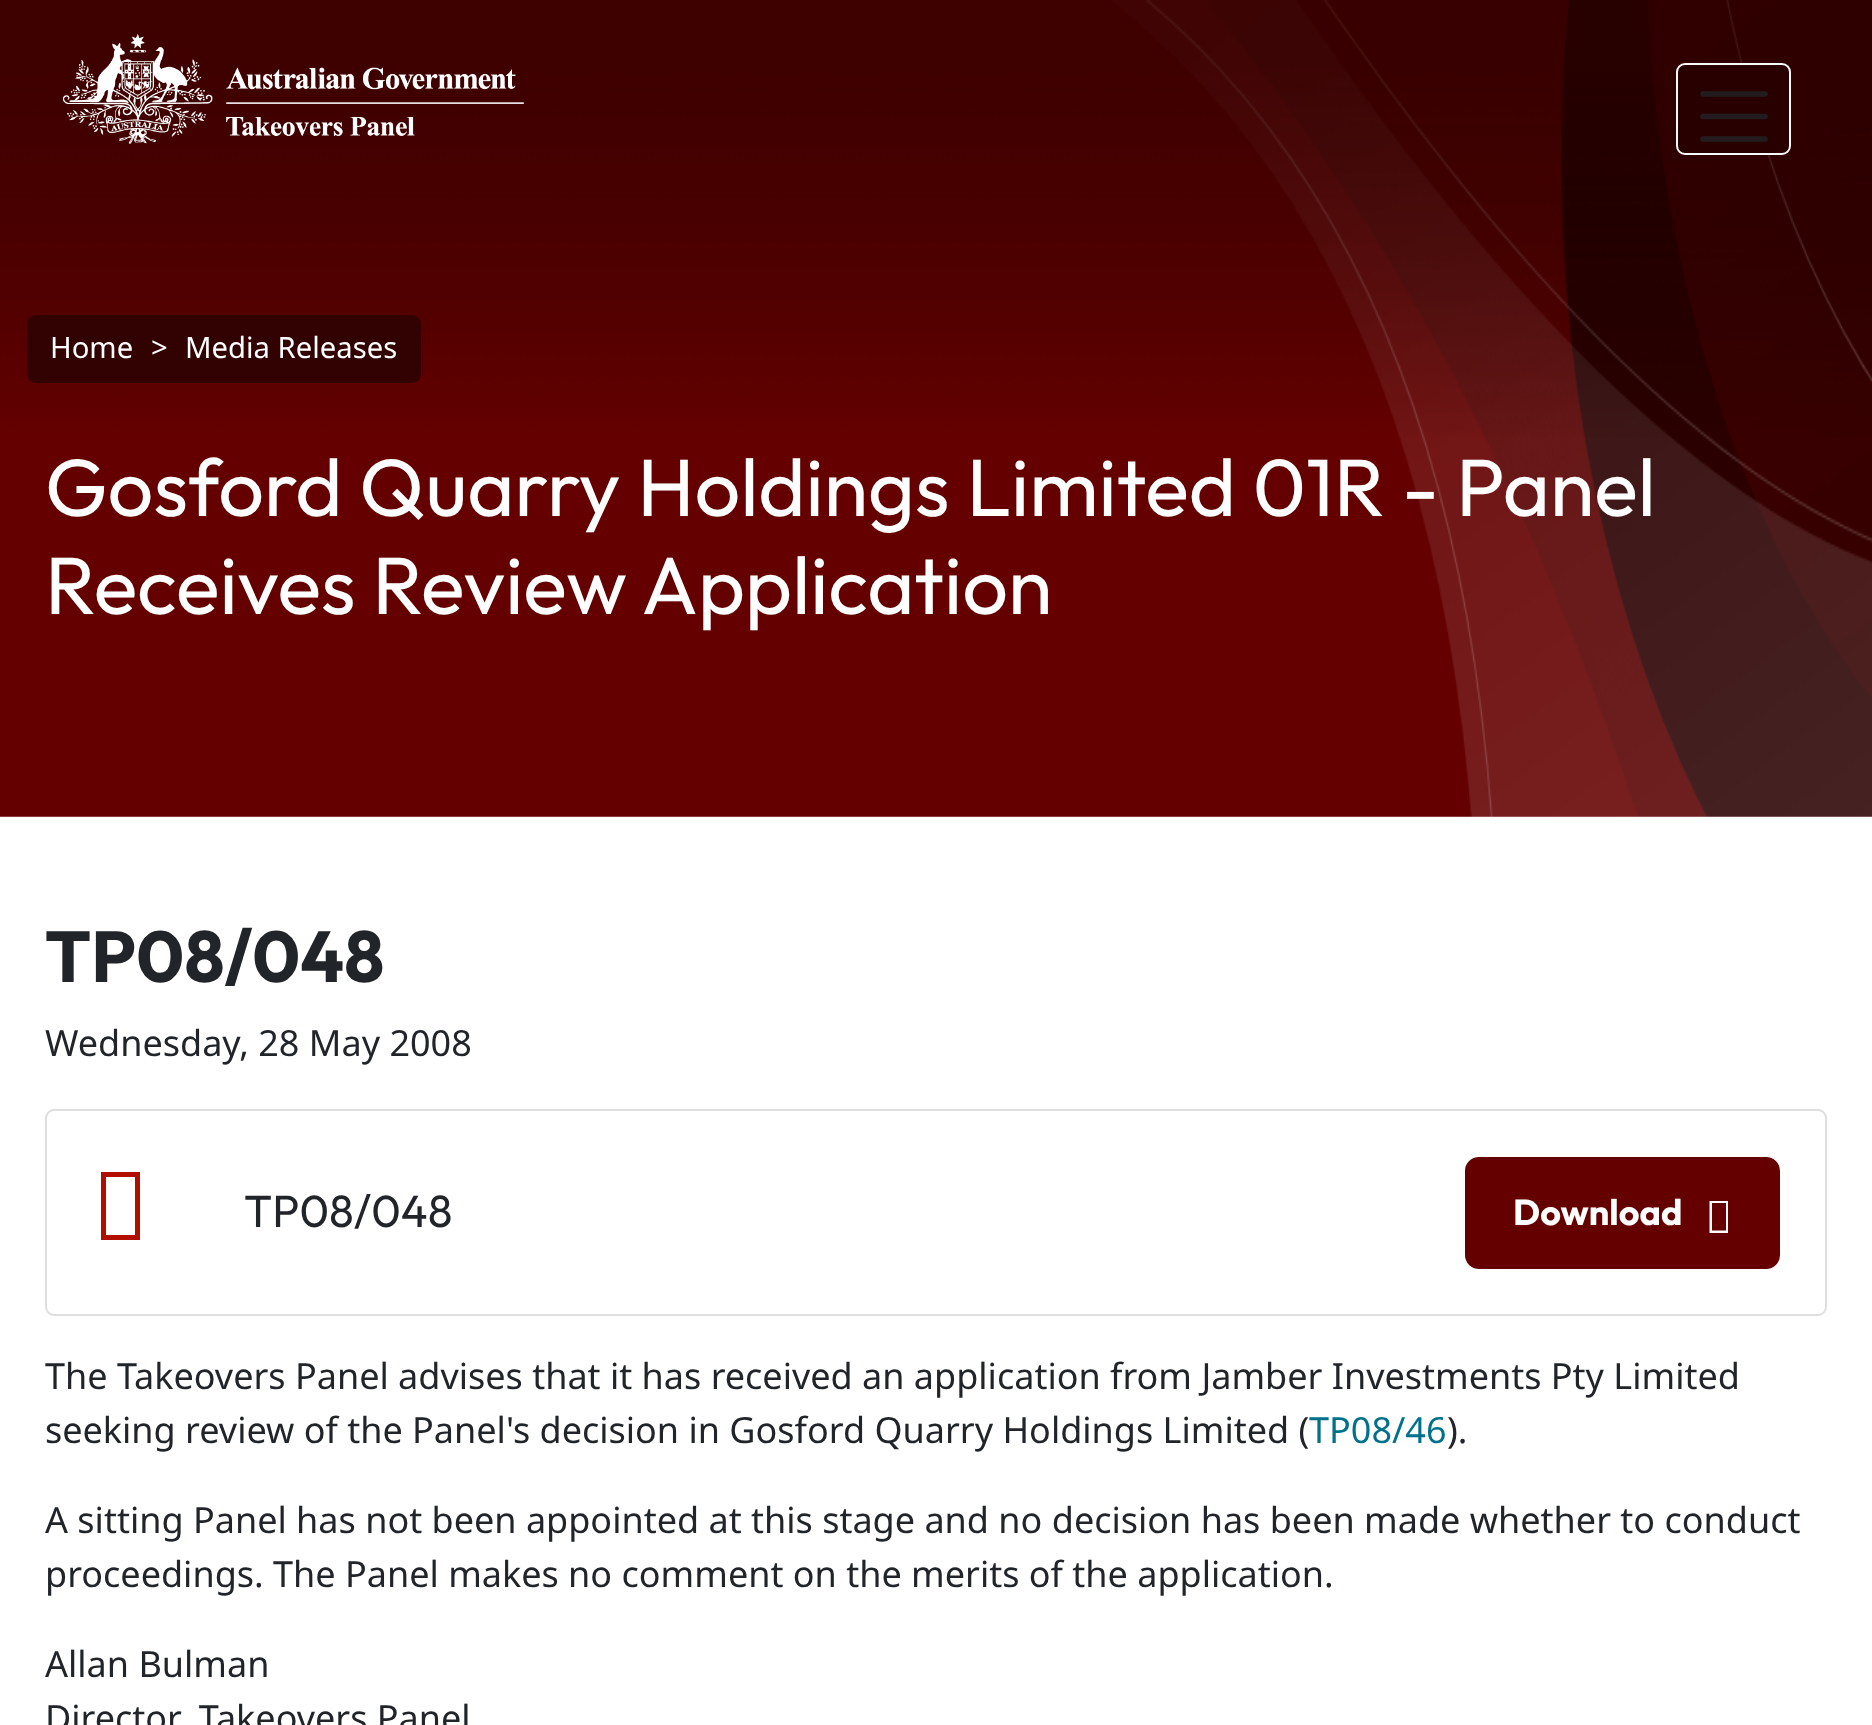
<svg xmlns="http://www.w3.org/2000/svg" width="1872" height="1725">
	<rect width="100%" height="100%" fill="#FFFFFF" />
	<image x="0" y="0" width="1872" height="817" href="assets/img1.png" />
	<image x="63" y="34" width="461" height="110" href="assets/img2.png" />
	<rect x="1677" y="64" width="113" height="90" rx="8" fill="#290000" stroke="#F8F9FA" stroke-width="2" />
	<path d="M1703 94H1765M1703 116.5H1765M1703 139H1765" fill="none" stroke="#231C1F" stroke-width="5.6" stroke-linecap="round" />
	<rect x="27" y="315" width="394" height="68" rx="9" fill="#320101" />
	<g font-family="Noto Sans" font-size="29.25" fill="#FFFFFF">
		<text x="50" y="358">Home</text>
		<text x="151" y="358">&gt;</text>
		<text x="185" y="358">Media Releases</text>
	</g>
	<g font-family="Outfit" font-size="81" fill="#FFFFFF">
		<text x="45" y="516">Gosford Quarry Holdings Limited 01R - Panel</text>
		<text x="45" y="614">Receives Review Application</text>
	</g>
	<text x="45" y="982" font-family="Outfit" font-size="72" font-weight="700" fill="#212529">TP08/048</text>
	<text x="45" y="1056" font-family="Noto Sans" font-size="36" fill="#212529">Wednesday, 28 May 2008</text>
	<rect x="46" y="1110" width="1780" height="205" rx="8" fill="none" stroke="#DEDEDE" stroke-width="2" />
	<path d="M101 1240V1172H140V1240ZM106 1235H135V1177H106Z" fill="#B20E00" />
	<text x="244" y="1227" font-family="Outfit" font-size="45" fill="#212529">TP08/048</text>
	<rect x="1466" y="1158" width="313" height="110" rx="13" fill="#650000" stroke="#650000" stroke-width="2" />
	<text x="1513" y="1225" font-family="Outfit" font-size="36" font-weight="700" fill="#FFFFFF">Download</text>
	<path d="M1709.5 1233V1201H1728V1233ZM1712 1230.5H1726V1203H1712Z" fill="#FFFFFF" />
	<g font-family="Noto Sans" font-size="36" fill="#212529">
		<text x="45" y="1389">The Takeovers Panel advises that it has received an application from Jamber Investments Pty Limited</text>
		<text x="45" y="1443">seeking review of the Panel's decision in Gosford Quarry Holdings Limited (</text>
	</g>
	<text x="1309" y="1443" font-family="Noto Sans" font-size="36" fill="#00718B">TP08/46</text>
	<g font-family="Noto Sans" font-size="36" fill="#212529">
		<text x="1447" y="1443">).</text>
		<text x="45" y="1533">A sitting Panel has not been appointed at this stage and no decision has been made whether to conduct</text>
		<text x="45" y="1587">proceedings. The Panel makes no comment on the merits of the application.</text>
		<text x="45" y="1677">Allan Bulman</text>
		<text x="45" y="1731">Director, Takeovers Panel</text>
	</g>
</svg>
